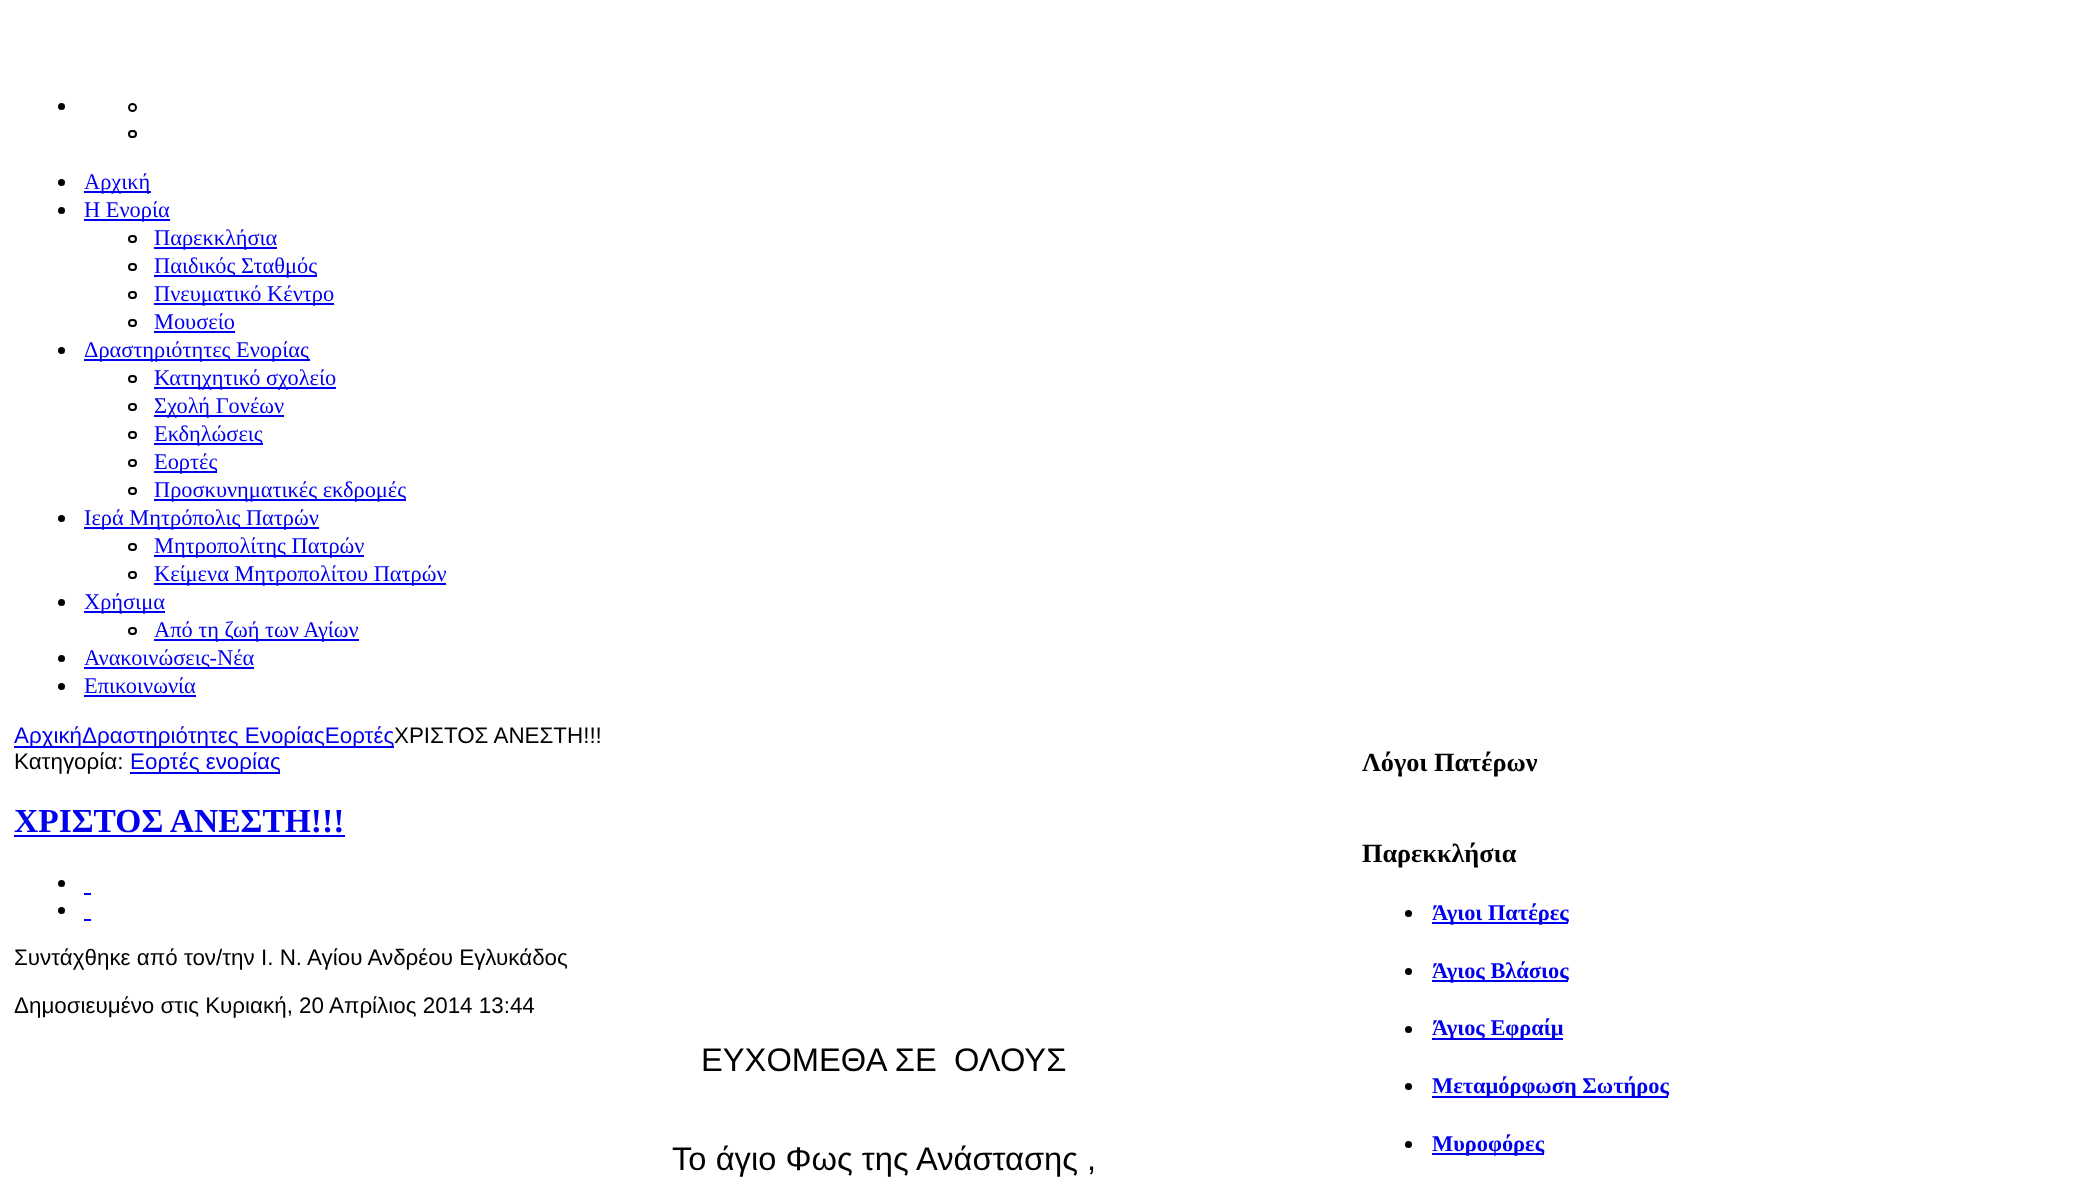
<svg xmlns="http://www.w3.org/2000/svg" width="2099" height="1204">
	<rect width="100%" height="100%" fill="#FFFFFF" />
	<circle cx="61.5" cy="106.5" r="3.5" fill="#000000" />
	<circle cx="132.5" cy="107.5" r="3.5" fill="none" stroke="#000000" stroke-width="2" />
	<rect x="129" y="131" width="7" height="6" rx="3" fill="none" stroke="#000000" stroke-width="2" />
	<circle cx="61.5" cy="182.5" r="3.5" fill="#000000" />
	<rect x="84" y="191" width="67" height="2" fill="#0000EE" />
	<text x="84" y="189" font-family="Liberation Serif" font-size="22.4" fill="#0000EE">Αρχική</text>
	<circle cx="61.5" cy="210.5" r="3.5" fill="#000000" />
	<rect x="84" y="219" width="86" height="2" fill="#0000EE" />
	<text x="84" y="217" font-family="Liberation Serif" font-size="22.4" fill="#0000EE">Η Ενορία</text>
	<rect x="129" y="236" width="7" height="6" rx="3" fill="none" stroke="#000000" stroke-width="2" />
	<rect x="154" y="247" width="123" height="2" fill="#0000EE" />
	<text x="154" y="245" font-family="Liberation Serif" font-size="22.4" fill="#0000EE">Παρεκκλήσια</text>
	<rect x="129" y="264" width="7" height="6" rx="3" fill="none" stroke="#000000" stroke-width="2" />
	<rect x="154" y="275" width="163" height="2" fill="#0000EE" />
	<text x="154" y="273" font-family="Liberation Serif" font-size="22.4" fill="#0000EE">Παιδικός Σταθμός</text>
	<rect x="129" y="292" width="7" height="6" rx="3" fill="none" stroke="#000000" stroke-width="2" />
	<rect x="154" y="303" width="180" height="2" fill="#0000EE" />
	<text x="154" y="301" font-family="Liberation Serif" font-size="22.4" fill="#0000EE">Πνευματικό Κέντρο</text>
	<rect x="129" y="320" width="7" height="6" rx="3" fill="none" stroke="#000000" stroke-width="2" />
	<text x="154" y="329" font-family="Liberation Serif" font-size="22.4" fill="#0000EE">Μουσείο</text>
	<rect x="154" y="331" width="81" height="2" fill="#0000EE" />
	<circle cx="61.5" cy="350.5" r="3.5" fill="#000000" />
	<rect x="84" y="359" width="226" height="2" fill="#0000EE" />
	<text x="84" y="357" font-family="Liberation Serif" font-size="22.4" fill="#0000EE">Δραστηριότητες Ενορίας</text>
	<rect x="129" y="376" width="7" height="6" rx="3" fill="none" stroke="#000000" stroke-width="2" />
	<rect x="154" y="387" width="182" height="2" fill="#0000EE" />
	<text x="154" y="385" font-family="Liberation Serif" font-size="22.4" fill="#0000EE">Κατηχητικό σχολείο</text>
	<rect x="129" y="404" width="7" height="6" rx="3" fill="none" stroke="#000000" stroke-width="2" />
	<rect x="154" y="415" width="130" height="2" fill="#0000EE" />
	<text x="154" y="413" font-family="Liberation Serif" font-size="22.4" fill="#0000EE">Σχολή Γονέων</text>
	<rect x="129" y="432" width="7" height="6" rx="3" fill="none" stroke="#000000" stroke-width="2" />
	<rect x="154" y="443" width="109" height="2" fill="#0000EE" />
	<text x="154" y="441" font-family="Liberation Serif" font-size="22.4" fill="#0000EE">Εκδηλώσεις</text>
	<rect x="129" y="460" width="7" height="6" rx="3" fill="none" stroke="#000000" stroke-width="2" />
	<rect x="154" y="471" width="63" height="2" fill="#0000EE" />
	<text x="154" y="469" font-family="Liberation Serif" font-size="22.4" fill="#0000EE">Εορτές</text>
	<rect x="129" y="488" width="7" height="6" rx="3" fill="none" stroke="#000000" stroke-width="2" />
	<rect x="154" y="499" width="252" height="2" fill="#0000EE" />
	<text x="154" y="497" font-family="Liberation Serif" font-size="22.4" fill="#0000EE">Προσκυνηματικές εκδρομές</text>
	<circle cx="61.5" cy="518.5" r="3.5" fill="#000000" />
	<rect x="84" y="527" width="235" height="2" fill="#0000EE" />
	<text x="84" y="525" font-family="Liberation Serif" font-size="22.4" fill="#0000EE">Ιερά Μητρόπολις Πατρών</text>
	<rect x="129" y="544" width="7" height="6" rx="3" fill="none" stroke="#000000" stroke-width="2" />
	<rect x="154" y="555" width="210" height="2" fill="#0000EE" />
	<text x="154" y="553" font-family="Liberation Serif" font-size="22.4" fill="#0000EE">Μητροπολίτης Πατρών</text>
	<rect x="129" y="572" width="7" height="6" rx="3" fill="none" stroke="#000000" stroke-width="2" />
	<rect x="154" y="583" width="292" height="2" fill="#0000EE" />
	<text x="154" y="581" font-family="Liberation Serif" font-size="22.4" fill="#0000EE">Κείμενα Μητροπολίτου Πατρών</text>
	<circle cx="61.5" cy="602.5" r="3.5" fill="#000000" />
	<rect x="84" y="611" width="81" height="2" fill="#0000EE" />
	<text x="84" y="609" font-family="Liberation Serif" font-size="22.4" fill="#0000EE">Χρήσιμα</text>
	<rect x="129" y="628" width="7" height="6" rx="3" fill="none" stroke="#000000" stroke-width="2" />
	<rect x="154" y="639" width="205" height="2" fill="#0000EE" />
	<text x="154" y="637" font-family="Liberation Serif" font-size="22.4" fill="#0000EE">Από τη ζωή των Αγίων</text>
	<circle cx="61.5" cy="658.5" r="3.5" fill="#000000" />
	<rect x="84" y="667" width="170" height="2" fill="#0000EE" />
	<text x="84" y="665" font-family="Liberation Serif" font-size="22.4" fill="#0000EE">Ανακοινώσεις-Νέα</text>
	<circle cx="61.5" cy="686.5" r="3.5" fill="#000000" />
	<text x="84" y="693" font-family="Liberation Serif" font-size="22.4" fill="#0000EE">Επικοινωνία</text>
	<rect x="84" y="695" width="112" height="2" fill="#0000EE" />
	<rect x="14" y="746" width="380" height="2" fill="#0000EE" />
	<text x="14" y="743" font-family="Liberation Sans" font-size="22.4" fill="#0000EE">ΑρχικήΔραστηριότητες ΕνορίαςΕορτές</text>
	<g font-family="Liberation Sans" font-size="22.4" fill="#000000">
		<text x="394" y="743">ΧΡΙΣΤΟΣ ΑΝΕΣΤΗ!!!</text>
		<text x="14" y="769">Κατηγορία:</text>
	</g>
	<rect x="130" y="772" width="150" height="2" fill="#0000EE" />
	<text x="130" y="769" font-family="Liberation Sans" font-size="22.4" fill="#0000EE">Εορτές ενορίας</text>
	<text x="14" y="832" font-family="Liberation Serif" font-size="33.5" font-weight="700" fill="#0000EE">ΧΡΙΣΤΟΣ ΑΝΕΣΤΗ!!!</text>
	<rect x="14" y="835" width="331" height="2" fill="#0000EE" />
	<circle cx="61.5" cy="883.5" r="3.5" fill="#000000" />
	<rect x="84" y="893" width="7" height="2" fill="#0000EE" />
	<circle cx="61.5" cy="910.5" r="3.5" fill="#000000" />
	<rect x="84" y="919" width="7" height="2" fill="#0000EE" />
	<g font-family="Liberation Sans" font-size="22.4" fill="#000000">
		<text x="14" y="965">Συντάχθηκε από τον/την Ι. Ν. Αγίου Ανδρέου Εγλυκάδος</text>
		<text x="14" y="1013">Δημοσιευμένο στις Κυριακή, 20 Απρίλιος 2014 13:44</text>
	</g>
	<g font-family="Liberation Sans" font-size="32.7" fill="#000000">
		<text x="701" y="1071">ΕΥΧΟΜΕΘΑ ΣΕ</text>
		<text x="954" y="1071">ΟΛΟΥΣ</text>
		<text x="672" y="1170">Το άγιο Φως της Ανάστασης ,</text>
	</g>
	<g font-family="Liberation Serif" font-size="26.25" font-weight="700" fill="#000000">
		<text x="1362" y="771">Λόγοι Πατέρων</text>
		<text x="1362" y="862">Παρεκκλήσια</text>
	</g>
	<circle cx="1408.5" cy="913.5" r="3.5" fill="#000000" />
	<rect x="1432" y="922" width="136" height="2" fill="#0000EE" />
	<text x="1432" y="920" font-family="Liberation Serif" font-size="22.4" font-weight="700" fill="#0000EE">Άγιοι Πατέρες</text>
	<circle cx="1408.5" cy="971.5" r="3.5" fill="#000000" />
	<rect x="1432" y="980" width="136" height="2" fill="#0000EE" />
	<text x="1432" y="978" font-family="Liberation Serif" font-size="22.4" font-weight="700" fill="#0000EE">Άγιος Βλάσιος</text>
	<circle cx="1408.5" cy="1029.5" r="3.5" fill="#000000" />
	<rect x="1432" y="1038" width="131" height="2" fill="#0000EE" />
	<text x="1432" y="1035" font-family="Liberation Serif" font-size="22.4" font-weight="700" fill="#0000EE">Άγιος Εφραίμ</text>
	<circle cx="1408.5" cy="1086.5" r="3.5" fill="#000000" />
	<rect x="1432" y="1096" width="236" height="2" fill="#0000EE" />
	<text x="1432" y="1093" font-family="Liberation Serif" font-size="22.4" font-weight="700" fill="#0000EE">Μεταμόρφωση Σωτήρος</text>
	<circle cx="1408.5" cy="1144.5" r="3.5" fill="#000000" />
	<rect x="1432" y="1153" width="112" height="2" fill="#0000EE" />
	<text x="1432" y="1151" font-family="Liberation Serif" font-size="22.4" font-weight="700" fill="#0000EE">Μυροφόρες</text>
</svg>
